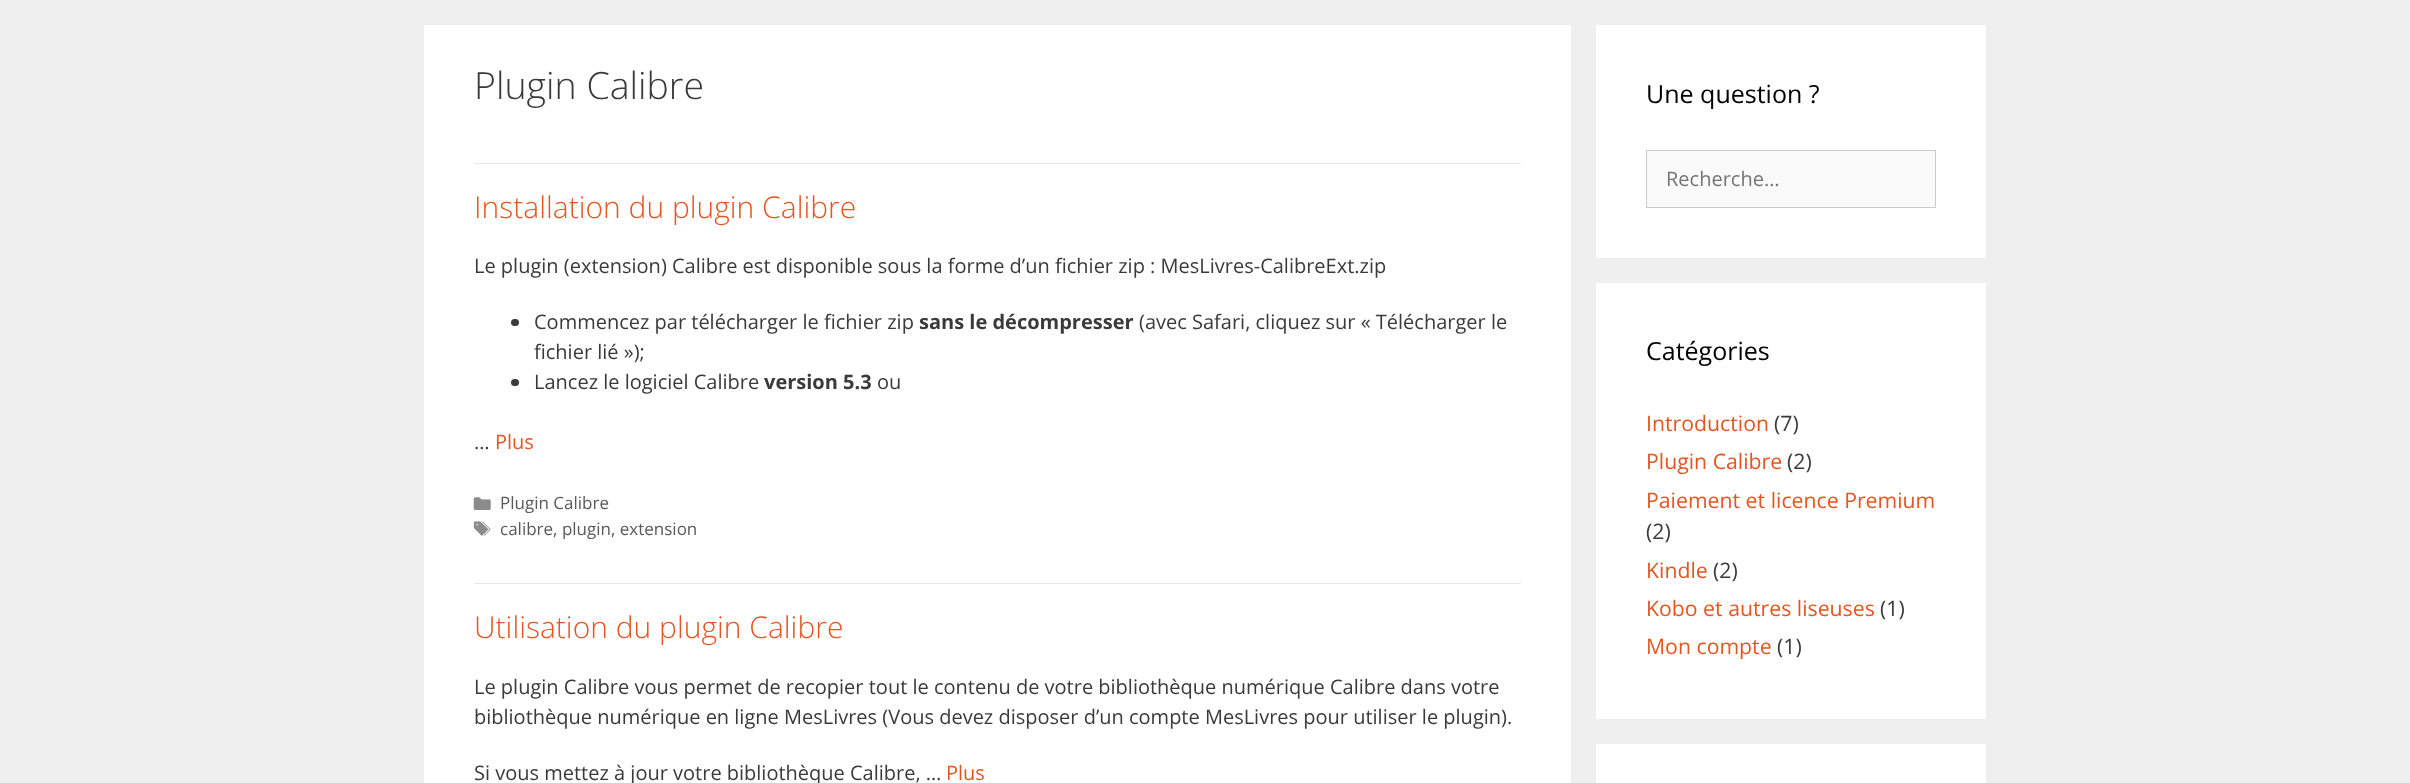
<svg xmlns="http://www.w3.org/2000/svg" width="2410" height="783">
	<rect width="100%" height="100%" fill="#EFEFEF" />
	<rect x="424" y="25" width="1147" height="758" fill="#FFFFFF" />
	<text x="474" y="99" font-family="Open Sans" font-size="37.5" font-weight="300" fill="#3A3A3A">Plugin Calibre</text>
	<rect x="474" y="163" width="1047" height="1" fill="#E6E6E6" />
	<text x="474" y="218" font-family="Open Sans" font-size="30" font-weight="300" fill="#E45621">Installation du plugin Calibre</text>
	<text x="474" y="273" font-family="Open Sans" font-size="20" fill="#3A3A3A">Le plugin (extension) Calibre est disponible sous la forme d’un fichier zip : MesLivres-CalibreExt.zip</text>
	<rect x="511" y="319" width="8" height="7" rx="3.5" fill="#3A3A3A" />
	<text x="534" y="329" font-family="Open Sans" font-size="20" fill="#3A3A3A">Commencez par télécharger le fichier zip</text>
	<text x="919" y="329" font-family="Open Sans" font-size="20" font-weight="700" fill="#3A3A3A">sans le décompresser</text>
	<g font-family="Open Sans" font-size="20" fill="#3A3A3A">
		<text x="1139" y="329">(avec Safari, cliquez sur « Télécharger le</text>
		<text x="534" y="359">fichier lié »);</text>
	</g>
	<rect x="511" y="379" width="8" height="7" rx="3.5" fill="#3A3A3A" />
	<text x="534" y="389" font-family="Open Sans" font-size="20" fill="#3A3A3A">Lancez le logiciel Calibre</text>
	<text x="764" y="389" font-family="Open Sans" font-size="20" font-weight="700" fill="#3A3A3A">version 5.3</text>
	<g font-family="Open Sans" font-size="20" fill="#3A3A3A">
		<text x="877" y="389">ou</text>
		<text x="474" y="449">…</text>
	</g>
	<text x="495" y="449" font-family="Open Sans" font-size="20" fill="#E45621">Plus</text>
	<image x="473" y="497" width="18" height="13" href="assets/img1.png" />
	<text x="500" y="509" font-family="Open Sans" font-size="17" fill="#595959">Plugin Calibre</text>
	<image x="473" y="521" width="18" height="15" href="assets/img2.png" />
	<text x="500" y="535" font-family="Open Sans" font-size="17" fill="#595959">calibre, plugin, extension</text>
	<rect x="474" y="583" width="1047" height="1" fill="#E6E6E6" />
	<text x="474" y="638" font-family="Open Sans" font-size="30" font-weight="300" fill="#E45621">Utilisation du plugin Calibre</text>
	<g font-family="Open Sans" font-size="20" fill="#3A3A3A">
		<text x="474" y="694">Le plugin Calibre vous permet de recopier tout le contenu de votre bibliothèque numérique Calibre dans votre</text>
		<text x="474" y="724">bibliothèque numérique en ligne MesLivres (Vous devez disposer d’un compte MesLivres pour utiliser le plugin).</text>
		<text x="474" y="780">Si vous mettez à jour votre bibliothèque Calibre, …</text>
	</g>
	<text x="946" y="780" font-family="Open Sans" font-size="20" fill="#E45621">Plus</text>
	<rect x="1596" y="25" width="390" height="233" fill="#FFFFFF" />
	<text x="1646" y="103" font-family="Open Sans" font-size="25" fill="#000000">Une question ?</text>
	<rect x="1646.5" y="150.5" width="289" height="57" fill="#FAFAFA" stroke="#CCCCCC" />
	<text x="1666" y="186" font-family="Open Sans" font-size="20" fill="#757575">Recherche…</text>
	<rect x="1596" y="283" width="390" height="436" fill="#FFFFFF" />
	<text x="1646" y="360" font-family="Open Sans" font-size="25" fill="#000000">Catégories</text>
	<text x="1646" y="431" font-family="Open Sans" font-size="21.25" fill="#E45621">Introduction</text>
	<text x="1774" y="431" font-family="Open Sans" font-size="21.25" fill="#3A3A3A">(7)</text>
	<text x="1646" y="469" font-family="Open Sans" font-size="21.25" fill="#E45621">Plugin Calibre</text>
	<text x="1787" y="469" font-family="Open Sans" font-size="21.25" fill="#3A3A3A">(2)</text>
	<text x="1646" y="508" font-family="Open Sans" font-size="21.25" fill="#E45621">Paiement et licence Premium</text>
	<text x="1646" y="539" font-family="Open Sans" font-size="21.25" fill="#3A3A3A">(2)</text>
	<text x="1646" y="578" font-family="Open Sans" font-size="21.25" fill="#E45621">Kindle</text>
	<text x="1713" y="578" font-family="Open Sans" font-size="21.25" fill="#3A3A3A">(2)</text>
	<text x="1646" y="616" font-family="Open Sans" font-size="21.25" fill="#E45621">Kobo et autres liseuses</text>
	<text x="1880" y="616" font-family="Open Sans" font-size="21.25" fill="#3A3A3A">(1)</text>
	<text x="1646" y="654" font-family="Open Sans" font-size="21.25" fill="#E45621">Mon compte</text>
	<text x="1777" y="654" font-family="Open Sans" font-size="21.25" fill="#3A3A3A">(1)</text>
	<rect x="1596" y="744" width="390" height="39" fill="#FFFFFF" />
</svg>
